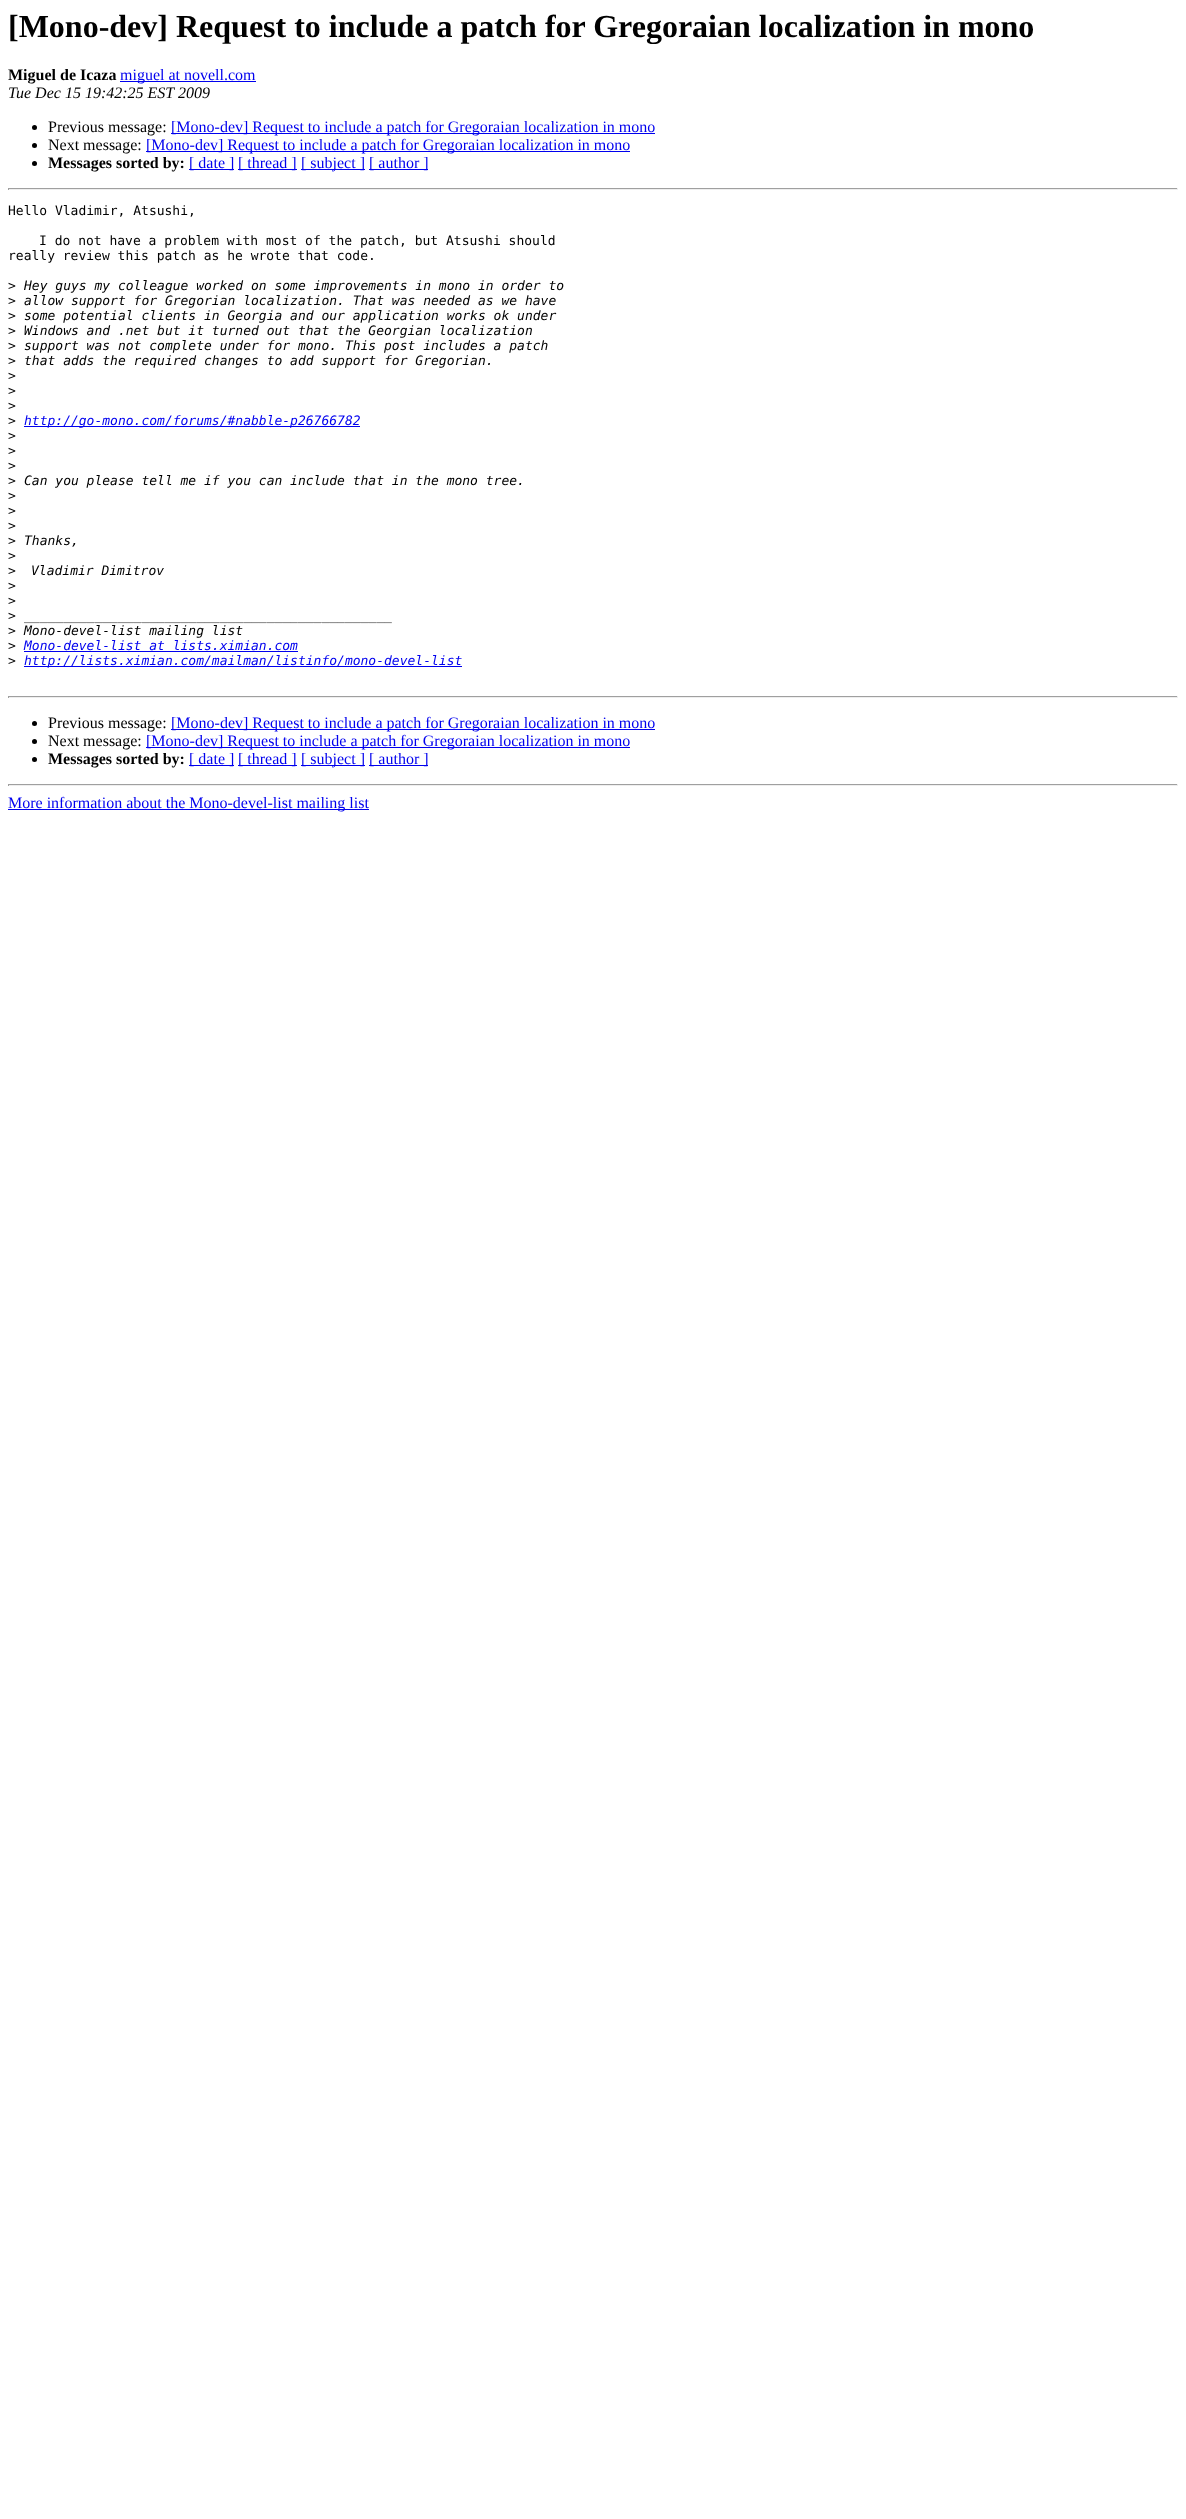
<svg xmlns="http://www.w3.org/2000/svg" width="1186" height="2519">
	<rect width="100%" height="100%" fill="#FFFFFF" />
	<text x="8" y="37" font-family="Liberation Serif" font-size="32" font-weight="700" fill="#000000">[Mono-dev] Request to include a patch for Gregoraian localization in mono</text>
	<text x="8" y="80" font-family="Liberation Serif" font-size="16" font-weight="700" fill="#000000">Miguel de Icaza</text>
	<rect x="120" y="81" width="136" height="1" fill="#0000EE" />
	<text x="120" y="80" font-family="Liberation Serif" font-size="16" fill="#0000EE">miguel at novell.com</text>
	<text x="8" y="98" font-family="Liberation Serif" font-size="16" font-style="italic" fill="#000000">Tue Dec 15 19:42:25 EST 2009</text>
	<circle cx="34.5" cy="127.5" r="2.5" fill="#000000" />
	<text x="48" y="132" font-family="Liberation Serif" font-size="16" fill="#000000">Previous message:</text>
	<rect x="171" y="133" width="484" height="1" fill="#0000EE" />
	<text x="171" y="132" font-family="Liberation Serif" font-size="16" fill="#0000EE">[Mono-dev] Request to include a patch for Gregoraian localization in mono</text>
	<circle cx="34.5" cy="145.5" r="2.5" fill="#000000" />
	<text x="48" y="150" font-family="Liberation Serif" font-size="16" fill="#000000">Next message:</text>
	<rect x="146" y="151" width="484" height="1" fill="#0000EE" />
	<text x="146" y="150" font-family="Liberation Serif" font-size="16" fill="#0000EE">[Mono-dev] Request to include a patch for Gregoraian localization in mono</text>
	<circle cx="34.5" cy="163.5" r="2.5" fill="#000000" />
	<text x="48" y="168" font-family="Liberation Serif" font-size="16" font-weight="700" fill="#000000">Messages sorted by:</text>
	<rect x="189" y="169" width="45" height="1" fill="#0000EE" />
	<text x="189" y="168" font-family="Liberation Serif" font-size="16" fill="#0000EE">[ date ]</text>
	<rect x="238" y="169" width="59" height="1" fill="#0000EE" />
	<text x="238" y="168" font-family="Liberation Serif" font-size="16" fill="#0000EE">[ thread ]</text>
	<rect x="301" y="169" width="64" height="1" fill="#0000EE" />
	<text x="301" y="168" font-family="Liberation Serif" font-size="16" fill="#0000EE">[ subject ]</text>
	<rect x="369" y="169" width="59" height="1" fill="#0000EE" />
	<text x="369" y="168" font-family="Liberation Serif" font-size="16" fill="#0000EE">[ author ]</text>
	<rect x="8" y="188" width="1170" height="1" fill="#9F9F9F" />
	<rect x="1177" y="188" width="1" height="2" fill="#EEEEEE" />
	<rect x="8" y="189" width="1170" height="1" fill="#EEEEEE" />
	<rect x="8" y="188" width="1" height="2" fill="#9F9F9F" />
	<g font-family="DejaVu Sans Mono" font-size="13" fill="#000000">
		<text x="8" y="215">Hello Vladimir, Atsushi,</text>
		<text x="39" y="245">I do not have a problem with most of the patch, but Atsushi should</text>
		<text x="8" y="260">really review this patch as he wrote that code.</text>
		<text x="8" y="290">&gt;</text>
	</g>
	<text x="24" y="290" font-family="DejaVu Sans Mono" font-size="13" font-style="italic" fill="#000000">Hey guys my colleague worked on some improvements in mono in order to</text>
	<text x="8" y="305" font-family="DejaVu Sans Mono" font-size="13" fill="#000000">&gt;</text>
	<text x="24" y="305" font-family="DejaVu Sans Mono" font-size="13" font-style="italic" fill="#000000">allow support for Gregorian localization. That was needed as we have</text>
	<text x="8" y="320" font-family="DejaVu Sans Mono" font-size="13" fill="#000000">&gt;</text>
	<text x="24" y="320" font-family="DejaVu Sans Mono" font-size="13" font-style="italic" fill="#000000">some potential clients in Georgia and our application works ok under</text>
	<text x="8" y="335" font-family="DejaVu Sans Mono" font-size="13" fill="#000000">&gt;</text>
	<text x="24" y="335" font-family="DejaVu Sans Mono" font-size="13" font-style="italic" fill="#000000">Windows and .net but it turned out that the Georgian localization</text>
	<text x="8" y="350" font-family="DejaVu Sans Mono" font-size="13" fill="#000000">&gt;</text>
	<text x="24" y="350" font-family="DejaVu Sans Mono" font-size="13" font-style="italic" fill="#000000">support was not complete under for mono. This post includes a patch</text>
	<text x="8" y="365" font-family="DejaVu Sans Mono" font-size="13" fill="#000000">&gt;</text>
	<text x="24" y="365" font-family="DejaVu Sans Mono" font-size="13" font-style="italic" fill="#000000">that adds the required changes to add support for Gregorian.</text>
	<g font-family="DejaVu Sans Mono" font-size="13" fill="#000000">
		<text x="8" y="380">&gt;</text>
		<text x="8" y="395">&gt;</text>
		<text x="8" y="410">&gt;</text>
		<text x="8" y="425">&gt;</text>
	</g>
	<rect x="24" y="426" width="336" height="1" fill="#0000EE" />
	<text x="24" y="425" font-family="DejaVu Sans Mono" font-size="13" font-style="italic" fill="#0000EE">http://go-mono.com/forums/#nabble-p26766782</text>
	<g font-family="DejaVu Sans Mono" font-size="13" fill="#000000">
		<text x="8" y="440">&gt;</text>
		<text x="8" y="455">&gt;</text>
		<text x="8" y="470">&gt;</text>
		<text x="8" y="485">&gt;</text>
	</g>
	<text x="24" y="485" font-family="DejaVu Sans Mono" font-size="13" font-style="italic" fill="#000000">Can you please tell me if you can include that in the mono tree.</text>
	<g font-family="DejaVu Sans Mono" font-size="13" fill="#000000">
		<text x="8" y="500">&gt;</text>
		<text x="8" y="515">&gt;</text>
		<text x="8" y="530">&gt;</text>
		<text x="8" y="545">&gt;</text>
	</g>
	<text x="24" y="545" font-family="DejaVu Sans Mono" font-size="13" font-style="italic" fill="#000000">Thanks,</text>
	<g font-family="DejaVu Sans Mono" font-size="13" fill="#000000">
		<text x="8" y="560">&gt;</text>
		<text x="8" y="575">&gt;</text>
	</g>
	<text x="31" y="575" font-family="DejaVu Sans Mono" font-size="13" font-style="italic" fill="#000000">Vladimir Dimitrov</text>
	<g font-family="DejaVu Sans Mono" font-size="13" fill="#000000">
		<text x="8" y="590">&gt;</text>
		<text x="8" y="605">&gt;</text>
		<text x="8" y="620">&gt;</text>
	</g>
	<text x="24" y="620" font-family="DejaVu Sans Mono" font-size="13" font-style="italic" fill="#000000">_______________________________________________</text>
	<text x="8" y="635" font-family="DejaVu Sans Mono" font-size="13" fill="#000000">&gt;</text>
	<text x="24" y="635" font-family="DejaVu Sans Mono" font-size="13" font-style="italic" fill="#000000">Mono-devel-list mailing list</text>
	<text x="8" y="650" font-family="DejaVu Sans Mono" font-size="13" fill="#000000">&gt;</text>
	<text x="24" y="650" font-family="DejaVu Sans Mono" font-size="13" font-style="italic" fill="#0000EE">Mono-devel-list at lists.ximian.com</text>
	<rect x="24" y="651" width="274" height="1" fill="#0000EE" />
	<text x="8" y="665" font-family="DejaVu Sans Mono" font-size="13" fill="#000000">&gt;</text>
	<rect x="24" y="666" width="438" height="1" fill="#0000EE" />
	<text x="24" y="665" font-family="DejaVu Sans Mono" font-size="13" font-style="italic" fill="#0000EE">http://lists.ximian.com/mailman/listinfo/mono-devel-list</text>
	<rect x="8" y="696" width="1170" height="1" fill="#9F9F9F" />
	<rect x="1177" y="696" width="1" height="2" fill="#EEEEEE" />
	<rect x="8" y="697" width="1170" height="1" fill="#EEEEEE" />
	<rect x="8" y="696" width="1" height="2" fill="#9F9F9F" />
	<circle cx="34.5" cy="723.5" r="2.5" fill="#000000" />
	<text x="48" y="728" font-family="Liberation Serif" font-size="16" fill="#000000">Previous message:</text>
	<rect x="171" y="729" width="484" height="1" fill="#0000EE" />
	<text x="171" y="728" font-family="Liberation Serif" font-size="16" fill="#0000EE">[Mono-dev] Request to include a patch for Gregoraian localization in mono</text>
	<circle cx="34.5" cy="741.5" r="2.5" fill="#000000" />
	<text x="48" y="746" font-family="Liberation Serif" font-size="16" fill="#000000">Next message:</text>
	<rect x="146" y="747" width="484" height="1" fill="#0000EE" />
	<text x="146" y="746" font-family="Liberation Serif" font-size="16" fill="#0000EE">[Mono-dev] Request to include a patch for Gregoraian localization in mono</text>
	<circle cx="34.5" cy="759.5" r="2.5" fill="#000000" />
	<text x="48" y="764" font-family="Liberation Serif" font-size="16" font-weight="700" fill="#000000">Messages sorted by:</text>
	<rect x="189" y="765" width="45" height="1" fill="#0000EE" />
	<text x="189" y="764" font-family="Liberation Serif" font-size="16" fill="#0000EE">[ date ]</text>
	<rect x="238" y="765" width="59" height="1" fill="#0000EE" />
	<text x="238" y="764" font-family="Liberation Serif" font-size="16" fill="#0000EE">[ thread ]</text>
	<rect x="301" y="765" width="64" height="1" fill="#0000EE" />
	<text x="301" y="764" font-family="Liberation Serif" font-size="16" fill="#0000EE">[ subject ]</text>
	<rect x="369" y="765" width="59" height="1" fill="#0000EE" />
	<text x="369" y="764" font-family="Liberation Serif" font-size="16" fill="#0000EE">[ author ]</text>
	<rect x="8" y="784" width="1170" height="1" fill="#9F9F9F" />
	<rect x="1177" y="784" width="1" height="2" fill="#EEEEEE" />
	<rect x="8" y="785" width="1170" height="1" fill="#EEEEEE" />
	<rect x="8" y="784" width="1" height="2" fill="#9F9F9F" />
	<rect x="8" y="809" width="361" height="1" fill="#0000EE" />
	<text x="8" y="808" font-family="Liberation Serif" font-size="16" fill="#0000EE">More information about the Mono-devel-list mailing list</text>
</svg>
